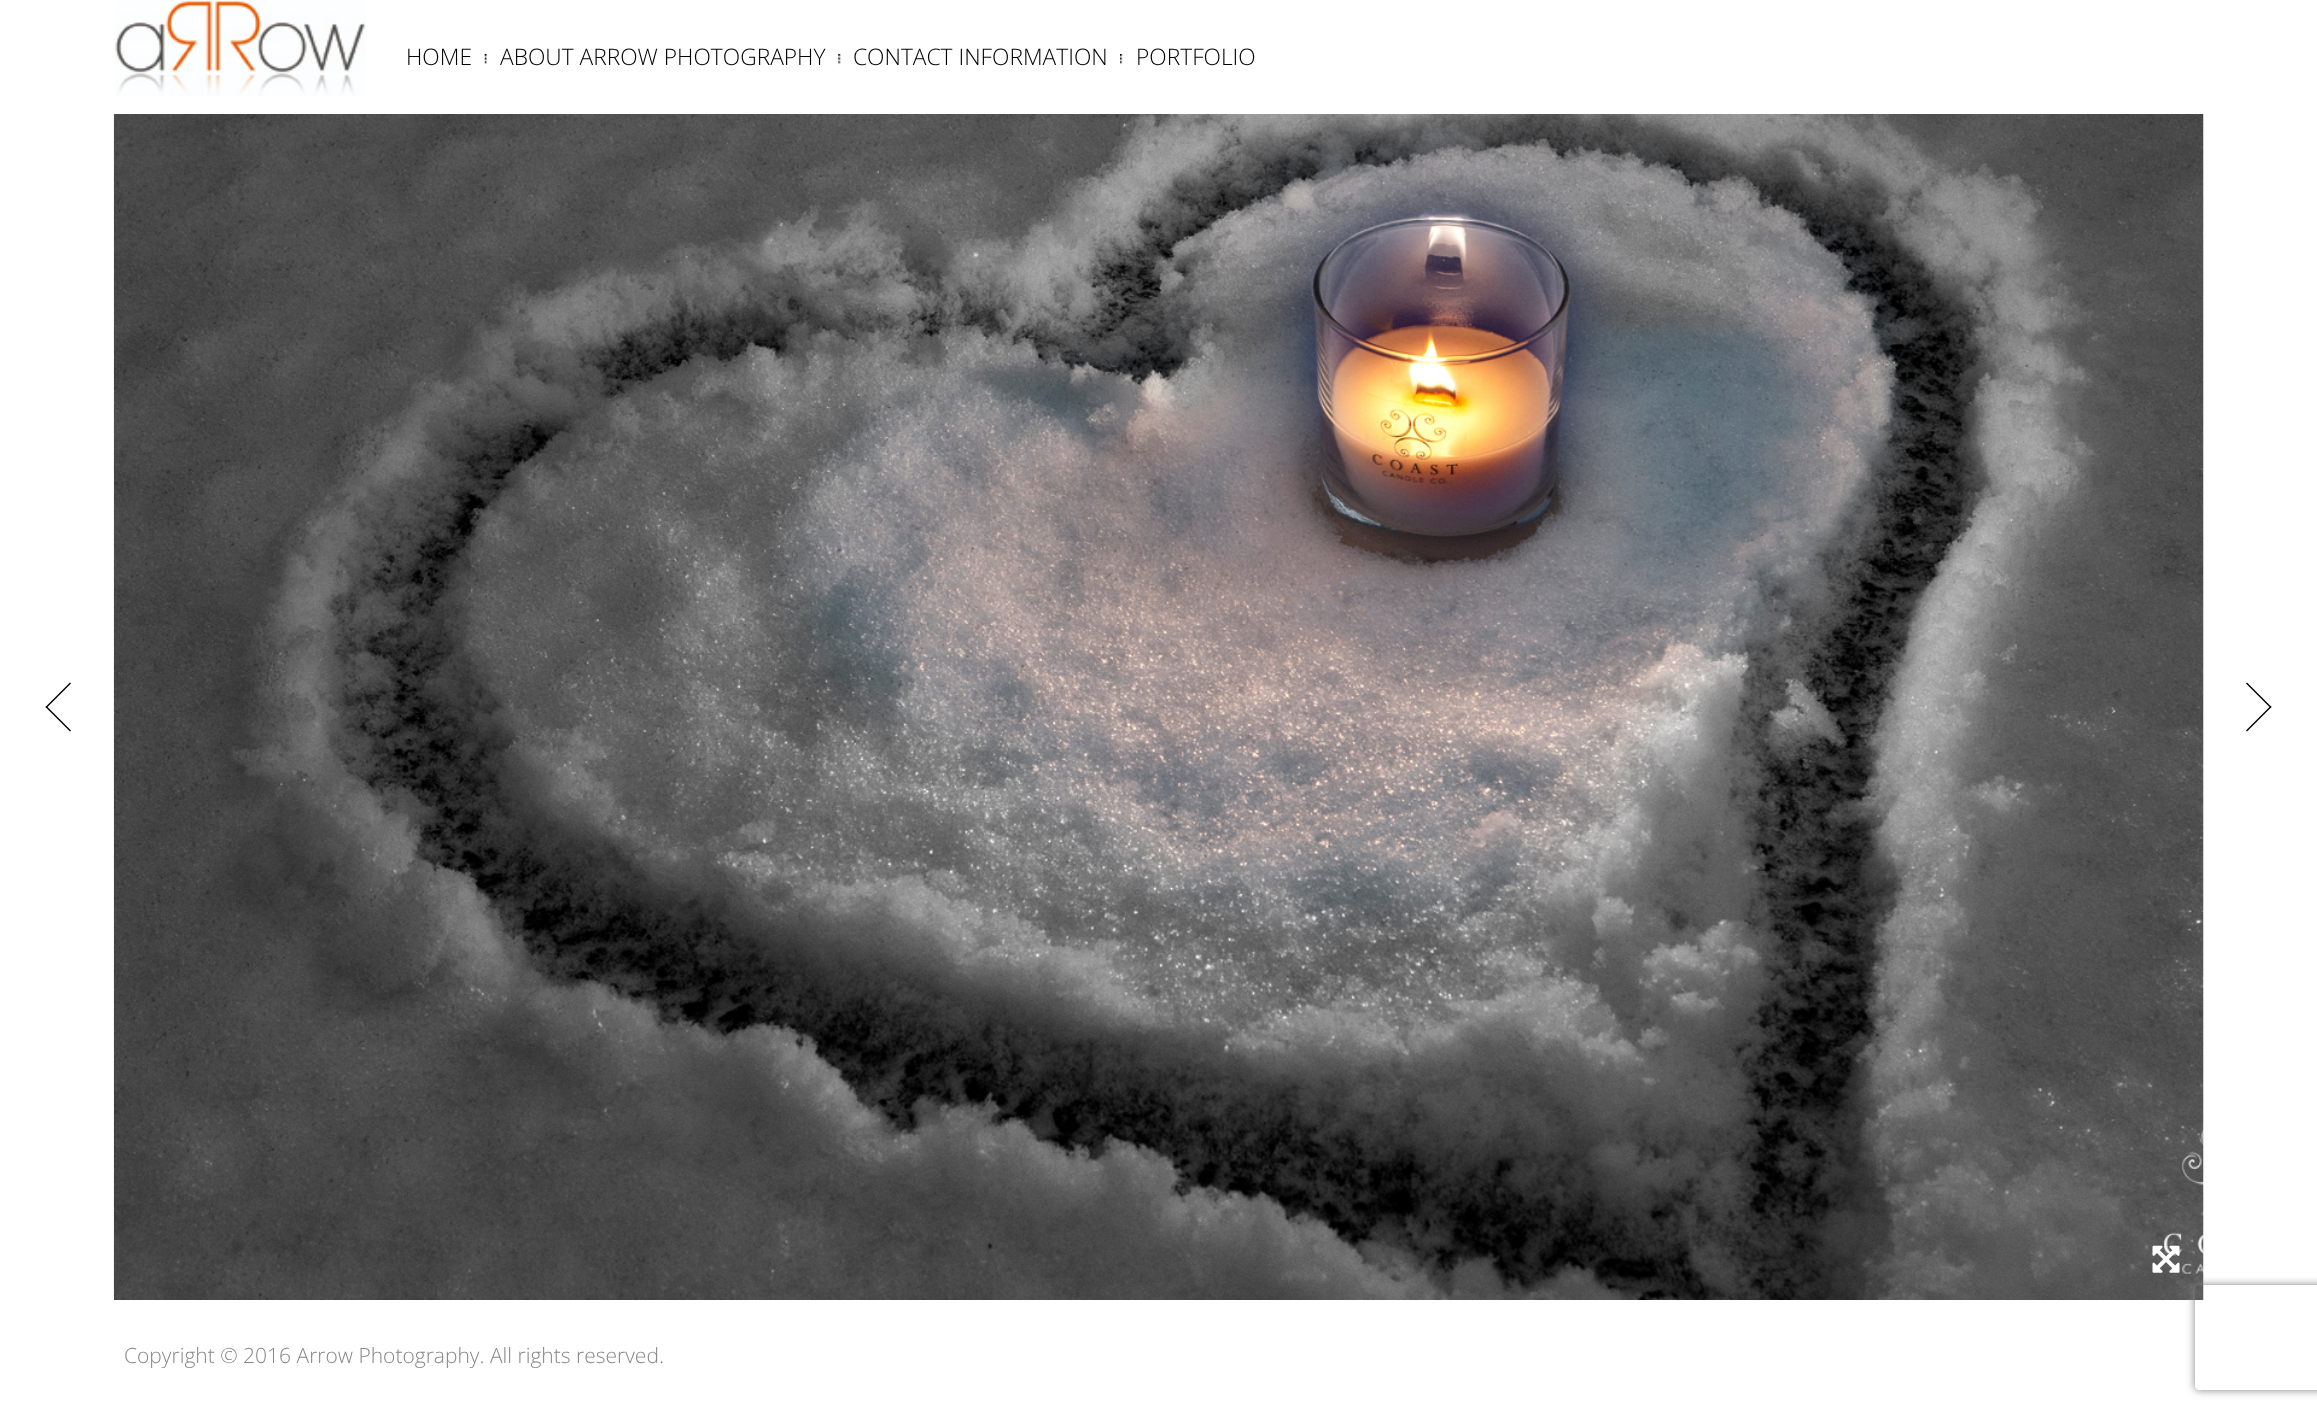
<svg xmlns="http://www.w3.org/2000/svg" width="2317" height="1413">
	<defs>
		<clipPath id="clip1"><path d="M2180 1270H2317V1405H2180ZM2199 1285H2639C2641 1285 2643 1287 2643 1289V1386C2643 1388 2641 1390 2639 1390H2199C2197 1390 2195 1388 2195 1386V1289C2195 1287 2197 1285 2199 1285Z" clip-rule="evenodd" /></clipPath>
	</defs>
	<rect width="100%" height="100%" fill="#FFFFFF" />
	<image x="115" y="0" width="251" height="96" href="assets/img1.png" />
	<text x="406" y="65" font-family="Open Sans" font-size="22.75" font-weight="300" fill="#000000">HOME</text>
	<image x="484" y="54" width="3" height="11" href="assets/img2.png" />
	<text x="500" y="65" font-family="Open Sans" font-size="22.75" font-weight="300" fill="#000000">ABOUT ARROW PHOTOGRAPHY</text>
	<image x="838" y="54" width="3" height="11" href="assets/img3.png" />
	<text x="853" y="65" font-family="Open Sans" font-size="22.75" font-weight="300" fill="#000000">CONTACT INFORMATION</text>
	<image x="1120" y="54" width="3" height="11" href="assets/img4.png" />
	<text x="1136" y="65" font-family="Open Sans" font-size="22.75" font-weight="300" fill="#000000">PORTFOLIO</text>
	<path d="M46.5 706L71 730.5L70 731.5L45.5 707Z" fill="#000000" />
	<path d="M70 682.5L71 683.5L46.5 708L45.5 707Z" fill="#000000" />
	<image x="113" y="114" width="2091" height="1186" href="assets/img5.png" />
	<path d="M2247 682.5L2271.5 707L2270.5 708L2246 683.5Z" fill="#000000" />
	<path d="M2270.5 706L2271.5 707L2247 731.5L2246 730.5Z" fill="#000000" />
	<image x="2152" y="1245" width="28" height="28" href="assets/img6.png" />
	<text x="124" y="1363" font-family="Open Sans" font-size="21" font-weight="300" fill="#868686">Copyright © 2016 Arrow Photography. All rights reserved.</text>
	<g clip-path="url(#clip1)">
		<rect x="2195" y="1285" width="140" height="105" rx="4" fill="#808080" filter="blur(4.5px)" />
	</g>
</svg>
